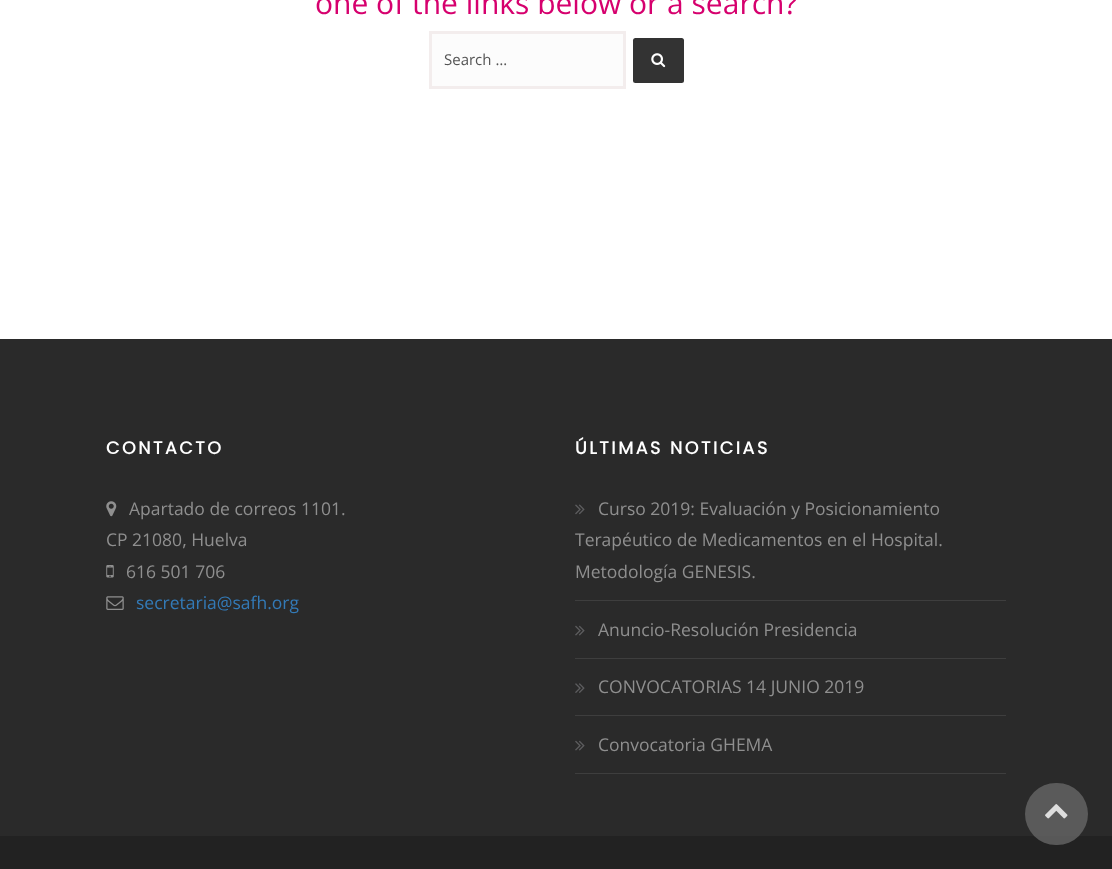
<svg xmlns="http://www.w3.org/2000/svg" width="1112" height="869">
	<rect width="100%" height="100%" fill="#FFFFFF" />
	<text x="315" y="14" font-family="Open Sans" font-size="30" fill="#D6006E">one of the links below or a search?</text>
	<rect x="430.5" y="32.5" width="194" height="55" fill="#FCFCFC" stroke="#F3EDED" stroke-width="3" />
	<text x="444" y="65" font-family="Open Sans" font-size="15" fill="#555555">Search …</text>
	<rect x="633" y="38" width="51" height="45" rx="2.5" fill="#333333" />
	<image x="651" y="53" width="15" height="15" href="assets/img1.png" />
	<rect x="0" y="339" width="1112" height="497" fill="#2A2A2A" />
	<text x="106" y="454" font-family="Poppins" font-size="17.5" font-weight="700" letter-spacing="2.5" fill="#FFFFFF">CONTACTO</text>
	<image x="106" y="501" width="11" height="16" href="assets/img2.png" />
	<g font-family="Open Sans" font-size="17.5" fill="#8F8F8F">
		<text x="129" y="515">Apartado de correos 1101.</text>
		<text x="106" y="546">CP 21080, Huelva</text>
	</g>
	<image x="106" y="565" width="8" height="13" href="assets/img3.png" />
	<text x="126" y="578" font-family="Open Sans" font-size="17.5" fill="#8F8F8F">616 501 706</text>
	<image x="106" y="596" width="18" height="14" href="assets/img4.png" />
	<text x="136" y="609" font-family="Open Sans" font-size="17.5" fill="#337AB7">secretaria@safh.org</text>
	<text x="575" y="454" font-family="Poppins" font-size="17.5" font-weight="700" letter-spacing="2.5" fill="#FFFFFF">ÚLTIMAS NOTICIAS</text>
	<rect x="575" y="600" width="431" height="1" fill="#3E3E3E" />
	<image x="575" y="504" width="10" height="11" href="assets/img5.png" />
	<g font-family="Open Sans" font-size="17.5" fill="#8F8F8F">
		<text x="598" y="515">Curso 2019: Evaluación y Posicionamiento</text>
		<text x="575" y="546">Terapéutico de Medicamentos en el Hospital.</text>
		<text x="575" y="578">Metodología GENESIS.</text>
	</g>
	<rect x="575" y="658" width="431" height="1" fill="#3E3E3E" />
	<image x="575" y="625" width="10" height="11" href="assets/img6.png" />
	<text x="598" y="636" font-family="Open Sans" font-size="17.5" fill="#8F8F8F">Anuncio-Resolución Presidencia</text>
	<rect x="575" y="715" width="431" height="1" fill="#3E3E3E" />
	<image x="575" y="683" width="10" height="10" href="assets/img7.png" />
	<text x="598" y="693" font-family="Open Sans" font-size="17.5" fill="#8F8F8F">CONVOCATORIAS 14 JUNIO 2019</text>
	<rect x="575" y="773" width="431" height="1" fill="#3E3E3E" />
	<image x="575" y="740" width="10" height="11" href="assets/img6.png" />
	<text x="598" y="751" font-family="Open Sans" font-size="17.5" fill="#8F8F8F">Convocatoria GHEMA</text>
	<rect x="0" y="836" width="1112" height="33" fill="#222222" />
	<rect x="1025" y="783" width="63" height="62" rx="31" fill="#666666" fill-opacity="0.8" />
	<image x="1045" y="804" width="23" height="15" href="assets/img8.png" />
</svg>
